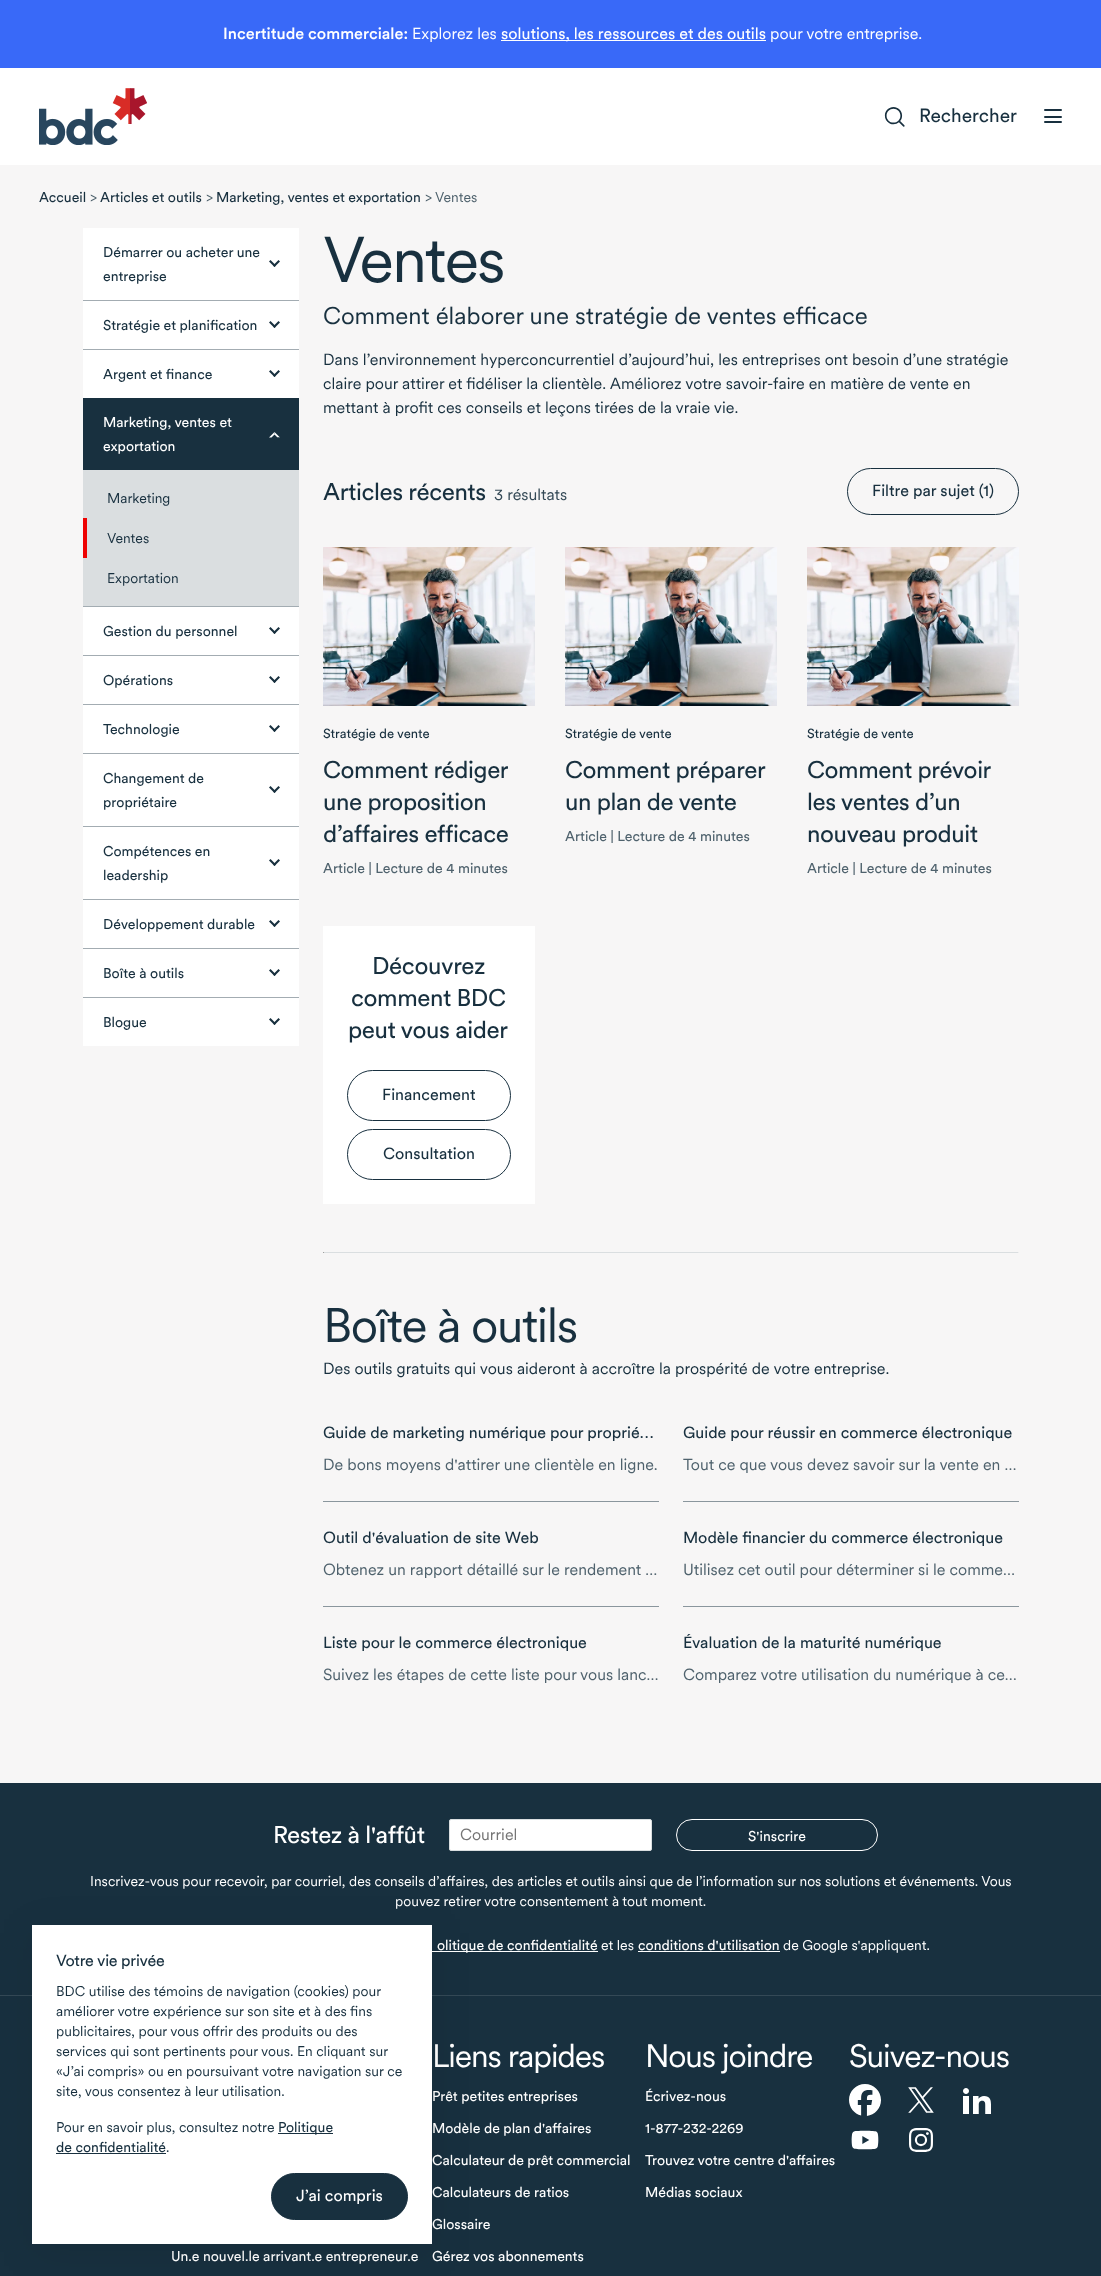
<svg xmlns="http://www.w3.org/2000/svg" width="1101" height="2276">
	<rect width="100%" height="100%" fill="#F7F6F6" />
	<rect x="0" y="0" width="1101" height="68" fill="#3969F8" />
	<text x="223" y="39" font-family="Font" font-size="16" font-weight="500" fill="#FFFFFF">Incertitude commerciale:</text>
	<text x="412" y="39" font-family="'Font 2'" font-size="16" fill="#FFFFFF">Explorez les</text>
	<rect x="501" y="40" width="265" height="1" fill="#FFFFFF" />
	<text x="501" y="39" font-family="Font" font-size="16" fill="#FFFFFF">solutions, les ressources et des outils</text>
	<text x="770" y="39" font-family="'Font 2'" font-size="16" fill="#FFFFFF">pour votre entreprise.</text>
	<rect x="0" y="68" width="1101" height="97" fill="#FFFFFF" />
	<image x="39" y="88" width="108" height="57" href="assets/img1.png" />
	<image x="884" y="107" width="21" height="20" href="assets/img2.png" />
	<text x="919" y="122" font-family="Font" font-size="19" fill="#18303F">Rechercher</text>
	<rect x="1044" y="109" width="18" height="2" rx="1" fill="#18303F" />
	<rect x="1044" y="116" width="18" height="2" rx="1" fill="#18303F" />
	<rect x="1044" y="121" width="18" height="2" rx="1" fill="#18303F" />
	<text x="39" y="202" font-family="Font" font-size="14" fill="#18303F">Accueil</text>
	<text x="90" y="202" font-family="'Font 2'" font-size="14" fill="#4F626D">&gt;</text>
	<text x="100" y="202" font-family="Font" font-size="14" fill="#18303F">Articles et outils</text>
	<text x="206" y="202" font-family="'Font 2'" font-size="14" fill="#4F626D">&gt;</text>
	<text x="216" y="202" font-family="Font" font-size="14" fill="#18303F">Marketing, ventes et exportation</text>
	<text x="425" y="202" font-family="'Font 2'" font-size="14" fill="#4F626D">&gt; Ventes</text>
	<rect x="83" y="228" width="216" height="818" fill="#FFFFFF" />
	<text x="103" y="257" font-family="Font" font-size="14" fill="#18303F">Démarrer ou acheter une</text>
	<path d="M278.5 260L280 261.5L274.5 267L273 265.5Z" fill="#18303F" />
	<path d="M270.5 260L276 265.5L274.5 267L269 261.5Z" fill="#18303F" />
	<text x="103" y="281" font-family="Font" font-size="14" fill="#18303F">entreprise</text>
	<rect x="83" y="300" width="216" height="1" fill="#A3ACB2" />
	<text x="103" y="330" font-family="Font" font-size="14" fill="#18303F">Stratégie et planification</text>
	<path d="M278.5 321L280 322.5L274.5 328L273 326.5Z" fill="#18303F" />
	<rect x="83" y="349" width="216" height="1" fill="#A3ACB2" />
	<path d="M270.5 321L276 326.5L274.5 328L269 322.5ZM278.5 370L280 371.5L274.5 377L273 375.5Z" fill="#18303F" />
	<text x="103" y="379" font-family="Font" font-size="14" fill="#18303F">Argent et finance</text>
	<path d="M270.5 370L276 375.5L274.5 377L269 371.5Z" fill="#18303F" />
	<rect x="83" y="398" width="216" height="72" fill="#18303F" />
	<text x="103" y="427" font-family="Font" font-size="14" fill="#FFFFFF">Marketing, ventes et</text>
	<path d="M274.5 432L280 437.5H277.5L274.5 434.5Z" fill="#FFFFFF" />
	<path d="M280 437.5L274.5 443V440.5L277.5 437.5Z" fill="#18303F" />
	<path d="M269 437.5L274.5 432V434.5L271.5 437.5Z" fill="#FFFFFF" />
	<text x="103" y="451" font-family="Font" font-size="14" fill="#FFFFFF">exportation</text>
	<rect x="83" y="470" width="216" height="136" fill="#DADEE0" />
	<text x="107" y="503" font-family="'Font 2'" font-size="14" fill="#18303F">Marketing</text>
	<rect x="83" y="518" width="4" height="40" fill="#EE0202" />
	<g font-family="'Font 2'" font-size="14" fill="#18303F">
		<text x="107" y="543">Ventes</text>
		<text x="107" y="583">Exportation</text>
	</g>
	<rect x="83" y="606" width="216" height="1" fill="#A3ACB2" />
	<text x="103" y="636" font-family="Font" font-size="14" fill="#18303F">Gestion du personnel</text>
	<path d="M278.5 627L280 628.5L274.5 634L273 632.5Z" fill="#18303F" />
	<rect x="83" y="655" width="216" height="1" fill="#A3ACB2" />
	<path d="M270.5 627L276 632.5L274.5 634L269 628.5ZM278.5 676L280 677.5L274.5 683L273 681.5Z" fill="#18303F" />
	<text x="103" y="685" font-family="Font" font-size="14" fill="#18303F">Opérations</text>
	<rect x="83" y="704" width="216" height="1" fill="#A3ACB2" />
	<path d="M270.5 676L276 681.5L274.5 683L269 677.5ZM278.5 725L280 726.5L274.5 732L273 730.5Z" fill="#18303F" />
	<text x="103" y="734" font-family="Font" font-size="14" fill="#18303F">Technologie</text>
	<path d="M270.5 725L276 730.5L274.5 732L269 726.5Z" fill="#18303F" />
	<rect x="83" y="753" width="216" height="1" fill="#A3ACB2" />
	<text x="103" y="783" font-family="Font" font-size="14" fill="#18303F">Changement de</text>
	<path d="M278.5 786L280 787.5L274.5 793L273 791.5Z" fill="#18303F" />
	<path d="M270.5 786L276 791.5L274.5 793L269 787.5Z" fill="#18303F" />
	<text x="103" y="807" font-family="Font" font-size="14" fill="#18303F">propriétaire</text>
	<rect x="83" y="826" width="216" height="1" fill="#A3ACB2" />
	<text x="103" y="856" font-family="Font" font-size="14" fill="#18303F">Compétences en</text>
	<path d="M278.5 859L280 860.5L274.5 866L273 864.5Z" fill="#18303F" />
	<path d="M270.5 859L276 864.5L274.5 866L269 860.5Z" fill="#18303F" />
	<text x="103" y="880" font-family="Font" font-size="14" fill="#18303F">leadership</text>
	<rect x="83" y="899" width="216" height="1" fill="#A3ACB2" />
	<text x="103" y="929" font-family="Font" font-size="14" fill="#18303F">Développement durable</text>
	<path d="M278.5 920L280 921.5L274.5 927L273 925.5Z" fill="#18303F" />
	<rect x="83" y="948" width="216" height="1" fill="#A3ACB2" />
	<path d="M270.5 920L276 925.5L274.5 927L269 921.5ZM278.5 969L280 970.5L274.5 976L273 974.5Z" fill="#18303F" />
	<text x="103" y="978" font-family="Font" font-size="14" fill="#18303F">Boîte à outils</text>
	<rect x="83" y="997" width="216" height="1" fill="#A3ACB2" />
	<path d="M270.5 969L276 974.5L274.5 976L269 970.5ZM278.5 1018L280 1019.5L274.5 1025L273 1023.5Z" fill="#18303F" />
	<text x="103" y="1027" font-family="Font" font-size="14" fill="#18303F">Blogue</text>
	<path d="M270.5 1018L276 1023.5L274.5 1025L269 1019.5Z" fill="#18303F" />
	<text x="323" y="282" font-family="'Font 2'" font-size="64" letter-spacing="-2" fill="#18303F">Ventes</text>
	<text x="323" y="324" font-family="'Font 2'" font-size="24" fill="#18303F">Comment élaborer une stratégie de ventes efficace</text>
	<g font-family="'Font 2'" font-size="16" fill="#18303F">
		<text x="323" y="365">Dans l’environnement hyperconcurrentiel d’aujourd’hui, les entreprises ont besoin d’une stratégie</text>
		<text x="323" y="389">claire pour attirer et fidéliser la clientèle. Améliorez votre savoir-faire en matière de vente en</text>
		<text x="323" y="413">mettant à profit ces conseils et leçons tirées de la vraie vie.</text>
	</g>
	<text x="323" y="500" font-family="Font" font-size="24" letter-spacing="-0.4" fill="#18303F">Articles récents</text>
	<text x="494" y="500" font-family="'Font 2'" font-size="16" fill="#344956">3 résultats</text>
	<rect x="847.5" y="468.5" width="171" height="46" rx="23" fill="none" stroke="#18303F" />
	<text x="872" y="496" font-family="Font" font-size="16" fill="#18303F">Filtre par sujet (1)</text>
	<image x="323" y="547" width="212" height="159" href="assets/img3.png" />
	<text x="323" y="738" font-family="Font" font-size="13" fill="#18303F">Stratégie de vente</text>
	<g font-family="Font" font-size="24" letter-spacing="-0.4" fill="#18303F">
		<text x="323" y="778">Comment rédiger</text>
		<text x="323" y="810">une proposition</text>
		<text x="323" y="842">d’affaires efficace</text>
	</g>
	<text x="323" y="873" font-family="Font" font-size="14" fill="#4F626D">Article | Lecture de 4 minutes</text>
	<image x="565" y="547" width="212" height="159" href="assets/img4.png" />
	<text x="565" y="738" font-family="Font" font-size="13" fill="#18303F">Stratégie de vente</text>
	<g font-family="Font" font-size="24" letter-spacing="-0.4" fill="#18303F">
		<text x="565" y="778">Comment préparer</text>
		<text x="565" y="810">un plan de vente</text>
	</g>
	<text x="565" y="841" font-family="Font" font-size="14" fill="#4F626D">Article | Lecture de 4 minutes</text>
	<image x="807" y="547" width="212" height="159" href="assets/img4.png" />
	<text x="807" y="738" font-family="Font" font-size="13" fill="#18303F">Stratégie de vente</text>
	<g font-family="Font" font-size="24" letter-spacing="-0.4" fill="#18303F">
		<text x="807" y="778">Comment prévoir</text>
		<text x="807" y="810">les ventes d’un</text>
		<text x="807" y="842">nouveau produit</text>
	</g>
	<text x="807" y="873" font-family="Font" font-size="14" fill="#4F626D">Article | Lecture de 4 minutes</text>
	<rect x="323" y="926" width="212" height="278" fill="#FFFFFF" />
	<g font-family="Font" font-size="24" letter-spacing="-0.4" fill="#18303F">
		<text x="372" y="974">Découvrez</text>
		<text x="351" y="1006">comment BDC</text>
		<text x="348" y="1038">peut vous aider</text>
	</g>
	<rect x="347.5" y="1070.5" width="163" height="50" rx="25" fill="none" stroke="#18303F" />
	<text x="382" y="1100" font-family="Font" font-size="16" fill="#18303F">Financement</text>
	<rect x="347.5" y="1129.5" width="163" height="50" rx="25" fill="none" stroke="#18303F" />
	<text x="383" y="1159" font-family="Font" font-size="16" fill="#18303F">Consultation</text>
	<rect x="323" y="1252" width="696" height="1" fill="#DADEE0" />
	<rect x="1018" y="1252" width="1" height="1" fill="#EEEEEE" />
	<rect x="323" y="1252" width="1" height="1" fill="#9F9F9F" />
	<text x="323" y="1342" font-family="'Font 2'" font-size="48" letter-spacing="-1.4" fill="#18303F">Boîte à outils</text>
	<text x="323" y="1374" font-family="'Font 2'" font-size="16" fill="#18303F">Des outils gratuits qui vous aideront à accroître la prospérité de votre entreprise.</text>
	<text x="323" y="1438" font-family="Font" font-size="16" fill="#18303F">Guide de marketing numérique pour proprié…</text>
	<text x="323" y="1470" font-family="'Font 2'" font-size="16" fill="#4F626D">De bons moyens d'attirer une clientèle en ligne.</text>
	<text x="683" y="1438" font-family="Font" font-size="16" fill="#18303F">Guide pour réussir en commerce électronique</text>
	<text x="683" y="1470" font-family="'Font 2'" font-size="16" fill="#4F626D">Tout ce que vous devez savoir sur la vente en …</text>
	<rect x="323" y="1501" width="336" height="1" fill="#8A969D" />
	<text x="323" y="1543" font-family="Font" font-size="16" fill="#18303F">Outil d'évaluation de site Web</text>
	<text x="323" y="1575" font-family="'Font 2'" font-size="16" fill="#4F626D">Obtenez un rapport détaillé sur le rendement …</text>
	<rect x="683" y="1501" width="336" height="1" fill="#8A969D" />
	<text x="683" y="1543" font-family="Font" font-size="16" fill="#18303F">Modèle financier du commerce électronique</text>
	<text x="683" y="1575" font-family="'Font 2'" font-size="16" fill="#4F626D">Utilisez cet outil pour déterminer si le comme…</text>
	<rect x="323" y="1606" width="336" height="1" fill="#8A969D" />
	<text x="323" y="1648" font-family="Font" font-size="16" fill="#18303F">Liste pour le commerce électronique</text>
	<text x="323" y="1680" font-family="'Font 2'" font-size="16" fill="#4F626D">Suivez les étapes de cette liste pour vous lanc…</text>
	<rect x="683" y="1606" width="336" height="1" fill="#8A969D" />
	<text x="683" y="1648" font-family="Font" font-size="16" fill="#18303F">Évaluation de la maturité numérique</text>
	<text x="683" y="1680" font-family="'Font 2'" font-size="16" fill="#4F626D">Comparez votre utilisation du numérique à ce…</text>
	<rect x="0" y="1783" width="1101" height="212" fill="#18303F" />
	<rect x="0" y="1995" width="1101" height="1" fill="#344956" />
	<text x="273" y="1843" font-family="Font" font-size="24" letter-spacing="-0.4" fill="#FFFFFF">Restez à l'affût</text>
	<rect x="449.5" y="1819.5" width="202" height="31" rx="1.5" fill="#FFFFFF" stroke="#DADEE0" />
	<text x="460" y="1840" font-family="'Font 2'" font-size="16" fill="#757575">Courriel</text>
	<rect x="676.5" y="1819.5" width="201" height="31" rx="15.5" fill="none" stroke="#FFFFFF" />
	<text x="748" y="1841" font-family="Font" font-size="14" fill="#FFFFFF">S'inscrire</text>
	<g font-family="'Font 2'" font-size="14" fill="#FFFFFF">
		<text x="90" y="1886">Inscrivez-vous pour recevoir, par courriel, des conseils d’affaires, des articles et outils ainsi que de l’information sur nos solutions et événements. Vous</text>
		<text x="395" y="1906">pouvez retirer votre consentement à tout moment.</text>
	</g>
	<rect x="429" y="1951" width="169" height="1" fill="#FFFFFF" />
	<text x="437" y="1950" font-family="Font" font-size="14" fill="#FFFFFF">olitique de confidentialité</text>
	<text x="601" y="1950" font-family="'Font 2'" font-size="14" fill="#FFFFFF">et les</text>
	<text x="638" y="1950" font-family="Font" font-size="14" fill="#FFFFFF">conditions d'utilisation</text>
	<rect x="638" y="1951" width="142" height="1" fill="#FFFFFF" />
	<text x="783" y="1950" font-family="'Font 2'" font-size="14" fill="#FFFFFF">de Google s'appliquent.</text>
	<rect x="0" y="1996" width="1101" height="280" fill="#18303F" />
	<text x="432" y="2067" font-family="'Font 2'" font-size="32" letter-spacing="-1.1" fill="#FFFFFF">Liens rapides</text>
	<g font-family="Font" font-size="14" fill="#FFFFFF">
		<text x="432" y="2101">Prêt petites entreprises</text>
		<text x="432" y="2133">Modèle de plan d'affaires</text>
		<text x="432" y="2165">Calculateur de prêt commercial</text>
		<text x="432" y="2197">Calculateurs de ratios</text>
		<text x="432" y="2229">Glossaire</text>
		<text x="432" y="2261">Gérez vos abonnements</text>
	</g>
	<text x="645" y="2067" font-family="'Font 2'" font-size="32" letter-spacing="-1.1" fill="#FFFFFF">Nous joindre</text>
	<g font-family="Font" font-size="14" fill="#FFFFFF">
		<text x="645" y="2101">Écrivez-nous</text>
		<text x="645" y="2133">1-877-232-2269</text>
		<text x="645" y="2165">Trouvez votre centre d'affaires</text>
		<text x="645" y="2197">Médias sociaux</text>
	</g>
	<text x="849" y="2067" font-family="'Font 2'" font-size="32" letter-spacing="-1.1" fill="#FFFFFF">Suivez-nous</text>
	<image x="849" y="2084" width="32" height="32" href="assets/img5.png" />
	<image x="908" y="2087" width="26" height="26" href="assets/img6.png" />
	<image x="963" y="2088" width="28" height="26" href="assets/img7.png" />
	<image x="851" y="2130" width="28" height="20" href="assets/img8.png" />
	<image x="909" y="2128" width="24" height="24" href="assets/img9.png" />
	<text x="171" y="2261" font-family="Font" font-size="14" fill="#FFFFFF">Un.e nouvel.le arrivant.e entrepreneur.e</text>
	<rect x="32" y="1933" width="400" height="319" fill="#000000" fill-opacity="0.08" filter="blur(20px)" />
	<rect x="32" y="1925" width="400" height="319" fill="#FFFFFF" />
	<text x="56" y="1966" font-family="Font" font-size="16" letter-spacing="-0.25" fill="#18303F">Votre vie privée</text>
	<g font-family="'Font 2'" font-size="14" fill="#18303F">
		<text x="56" y="1996">BDC utilise des témoins de navigation (cookies) pour</text>
		<text x="56" y="2016">améliorer votre expérience sur son site et à des fins</text>
		<text x="56" y="2036">publicitaires, pour vous offrir des produits ou des</text>
		<text x="56" y="2056">services qui sont pertinents pour vous. En cliquant sur</text>
		<text x="56" y="2076">«J’ai compris» ou en poursuivant votre navigation sur ce</text>
		<text x="56" y="2096">site, vous consentez à leur utilisation.</text>
		<text x="56" y="2132">Pour en savoir plus, consultez notre</text>
	</g>
	<rect x="278" y="2133" width="55" height="1" fill="#18303F" />
	<g font-family="Font" font-size="14" fill="#18303F">
		<text x="278" y="2132">Politique</text>
		<text x="56" y="2152">de confidentialité</text>
	</g>
	<rect x="56" y="2153" width="110" height="1" fill="#18303F" />
	<text x="166" y="2152" font-family="'Font 2'" font-size="14" fill="#18303F">.</text>
	<rect x="271.5" y="2173.5" width="136" height="46" rx="23" fill="#18303F" stroke="#18303F" />
	<text x="296" y="2201" font-family="Font" font-size="16" fill="#FFFFFF">J’ai compris</text>
</svg>
